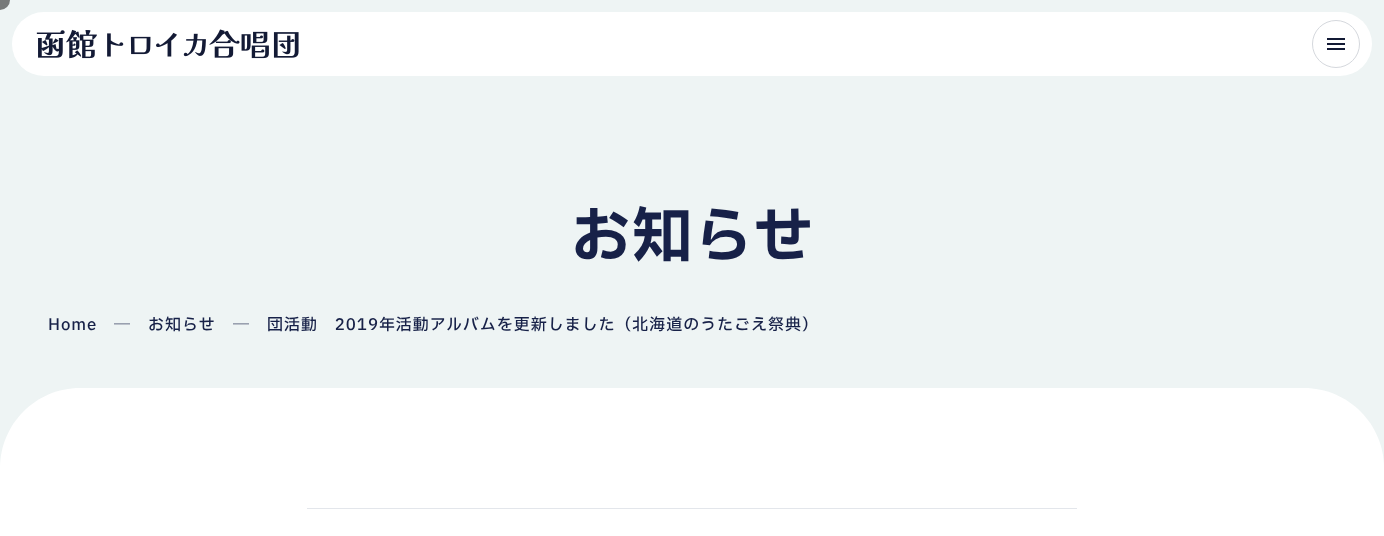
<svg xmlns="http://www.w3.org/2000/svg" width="1384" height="536">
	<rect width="100%" height="100%" fill="#EEF4F4" />
	<circle cx="0" cy="0" r="10" fill="#777A7A" />
	<rect x="12" y="12" width="1360" height="64" rx="32" fill="#FFFFFF" />
	<image x="36" y="29" width="263" height="30" href="assets/img1.png" />
	<circle cx="1336" cy="44" r="23.5" fill="none" stroke="#D5D8DD" />
	<rect x="1327" y="38" width="18" height="2" fill="#131A35" />
	<rect x="1327" y="43" width="18" height="2" fill="#131A35" />
	<rect x="1327" y="48" width="18" height="2" fill="#131A35" />
	<text x="571" y="257" font-family="IBM Plex Sans JP" font-size="60" font-weight="700" letter-spacing="0.95" fill="#172148">お知らせ</text>
	<g font-family="IBM Plex Sans JP" font-size="16" font-weight="500" letter-spacing="0.95" fill="#172148">
		<text x="48" y="330">Home</text>
		<text x="114" y="330">─</text>
		<text x="148" y="330">お知らせ</text>
		<text x="233" y="330">─</text>
		<text x="267" y="330">団活動　2019年活動アルバムを更新しました（北海道のうたごえ祭典）</text>
	</g>
	<path d="M80 388H1304C1348 388 1384 424 1384 468V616H0V468C0 424 36 388 80 388Z" fill="#FFFFFF" />
	<rect x="307" y="508" width="770" height="1" fill="#E3E6EB" />
</svg>
